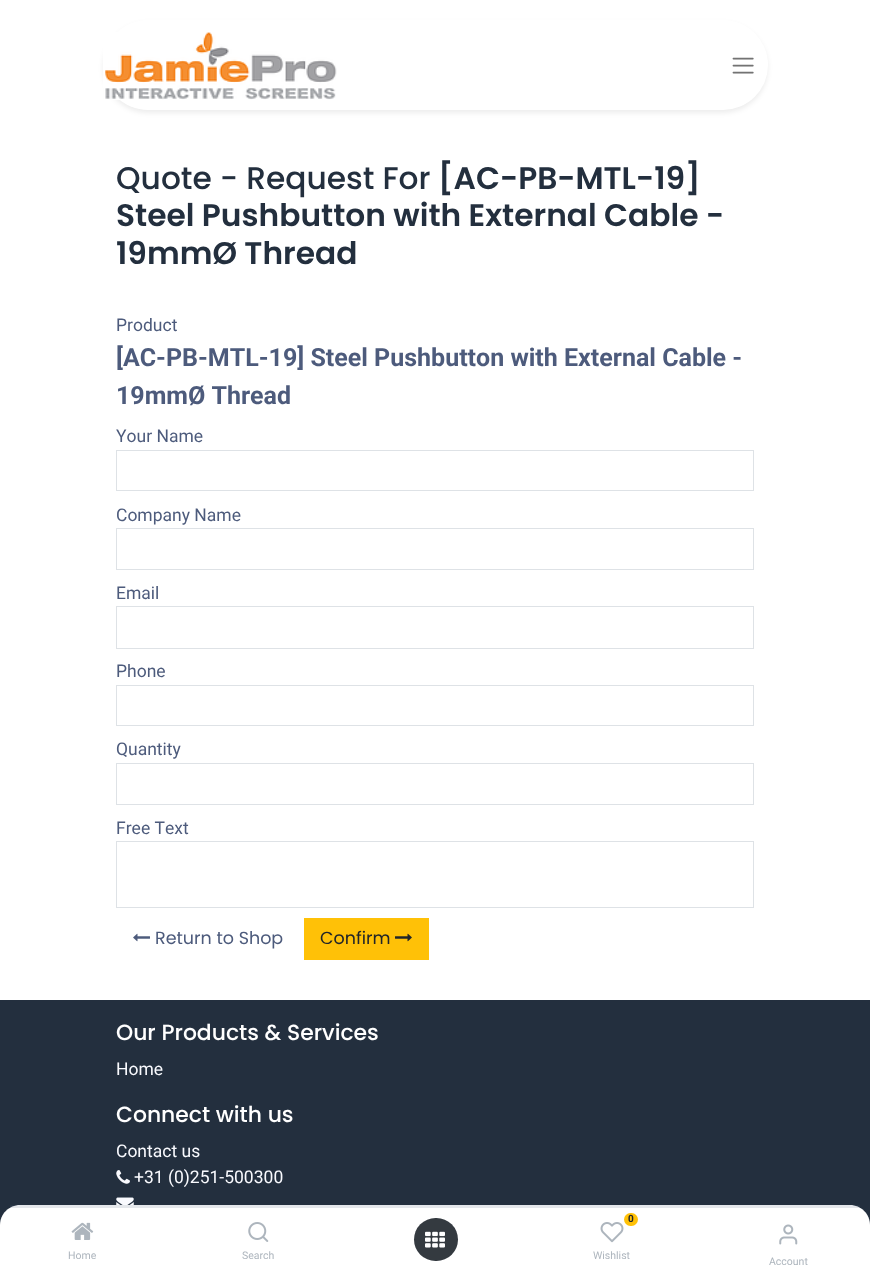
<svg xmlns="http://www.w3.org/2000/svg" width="870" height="1276">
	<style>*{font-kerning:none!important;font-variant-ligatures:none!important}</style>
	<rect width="100%" height="100%" fill="#FFFFFF" />
	<rect x="103" y="23" width="665" height="90" rx="45" fill="#000000" fill-opacity="0.07" filter="blur(2.5px)" />
	<rect x="103" y="20" width="665" height="90" rx="45" fill="#FFFFFF" />
	<image x="103" y="32" width="234" height="68" href="assets/img1.png" />
	<image x="732" y="57" width="22" height="17" href="assets/img2.png" />
	<text x="116" y="189" font-family="Poppins" font-size="31.25" font-weight="500" fill="#232F3E">Quote - Request For</text>
	<g font-family="Poppins" font-size="31.25" font-weight="600" fill="#232F3E">
		<text x="438" y="189">[AC-PB-MTL-19]</text>
		<text x="116" y="226">Steel Pushbutton with External Cable -</text>
		<text x="116" y="264">19mmØ Thread</text>
	</g>
	<text x="116" y="331" font-family="Roboto" font-size="17.5" fill="#4D5B7C">Product</text>
	<g font-family="Roboto" font-size="25" font-weight="700" fill="#4D5B7C">
		<text x="116" y="366">[AC-PB-MTL-19] Steel Pushbutton with External Cable -</text>
		<text x="116" y="404">19mmØ Thread</text>
	</g>
	<text x="116" y="442" font-family="Roboto" font-size="17.5" fill="#4D5B7C">Your Name</text>
	<rect x="116.5" y="450.5" width="637" height="40" fill="none" stroke="#DEE2E6" />
	<text x="116" y="521" font-family="Roboto" font-size="17.5" fill="#4D5B7C">Company Name</text>
	<rect x="116.5" y="528.5" width="637" height="41" fill="none" stroke="#DEE2E6" />
	<text x="116" y="599" font-family="Roboto" font-size="17.5" fill="#4D5B7C">Email</text>
	<rect x="116.5" y="606.5" width="637" height="42" fill="none" stroke="#DEE2E6" />
	<text x="116" y="677" font-family="Roboto" font-size="17.5" fill="#4D5B7C">Phone</text>
	<rect x="116.5" y="685.5" width="637" height="40" fill="none" stroke="#DEE2E6" />
	<text x="116" y="755" font-family="Roboto" font-size="17.5" fill="#4D5B7C">Quantity</text>
	<rect x="116.5" y="763.5" width="637" height="41" fill="none" stroke="#DEE2E6" />
	<text x="116" y="834" font-family="Roboto" font-size="17.5" fill="#4D5B7C">Free Text</text>
	<rect x="116.5" y="841.5" width="637" height="66" fill="none" stroke="#DEE2E6" />
	<image x="133" y="933" width="17" height="9" href="assets/img3.png" />
	<text x="155" y="944" font-family="Poppins" font-size="17.5" fill="#4D5B7C">Return to Shop</text>
	<rect x="304" y="918" width="125" height="42" fill="#FFC107" />
	<text x="320" y="944" font-family="Poppins" font-size="17.5" fill="#212529">Confirm</text>
	<image x="395" y="933" width="17" height="9" href="assets/img4.png" />
	<rect x="0" y="1000" width="870" height="225" fill="#232F3E" />
	<text x="116" y="1040" font-family="Poppins" font-size="21.9" font-weight="500" fill="#FFFFFF">Our Products &amp; Services</text>
	<text x="116" y="1075" font-family="Roboto" font-size="17.5" fill="#F9FAFE">Home</text>
	<text x="116" y="1122" font-family="Poppins" font-size="21.9" font-weight="500" fill="#FFFFFF">Connect with us</text>
	<text x="116" y="1157" font-family="Roboto" font-size="17.5" fill="#F9FAFE">Contact us</text>
	<image x="116" y="1170" width="14" height="14" href="assets/img5.png" />
	<text x="134" y="1183" font-family="Roboto" font-size="17.5" fill="#F9FAFE">+31 (0)251-500300</text>
	<image x="116" y="1197" width="18" height="8" href="assets/img6.png" />
	<path d="M20 1205H850C861 1205 870 1214 870 1225V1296H0V1225C0 1214 9 1205 20 1205Z" fill="#FFFFFF" />
	<rect x="10" y="1205" width="850" height="3" fill="#4D5B7C" fill-opacity="0.15" />
	<image x="71" y="1222" width="23" height="18" href="assets/img7.png" />
	<text x="68" y="1259" font-family="Roboto" font-size="10.5" fill="#ADB5BD">Home</text>
	<image x="248" y="1222" width="21" height="20" href="assets/img8.png" />
	<text x="242" y="1259" font-family="Roboto" font-size="10.5" fill="#ADB5BD">Search</text>
	<rect x="414" y="1218" width="44" height="43" rx="21.5" fill="#343A40" />
	<image x="425" y="1231" width="20" height="17" href="assets/img9.png" />
	<rect x="624" y="1213" width="14" height="13" rx="6.5" fill="#FFC107" />
	<text x="628" y="1222" font-family="Roboto" font-size="10" font-weight="700" fill="#212529">0</text>
	<image x="600" y="1222" width="24" height="21" href="assets/img10.png" />
	<text x="593" y="1259" font-family="Roboto" font-size="10.5" fill="#ADB5BD">Wishlist</text>
	<image x="779" y="1224" width="19" height="21" href="assets/img11.png" />
	<text x="769" y="1265" font-family="Roboto" font-size="10.5" fill="#ADB5BD">Account</text>
</svg>
